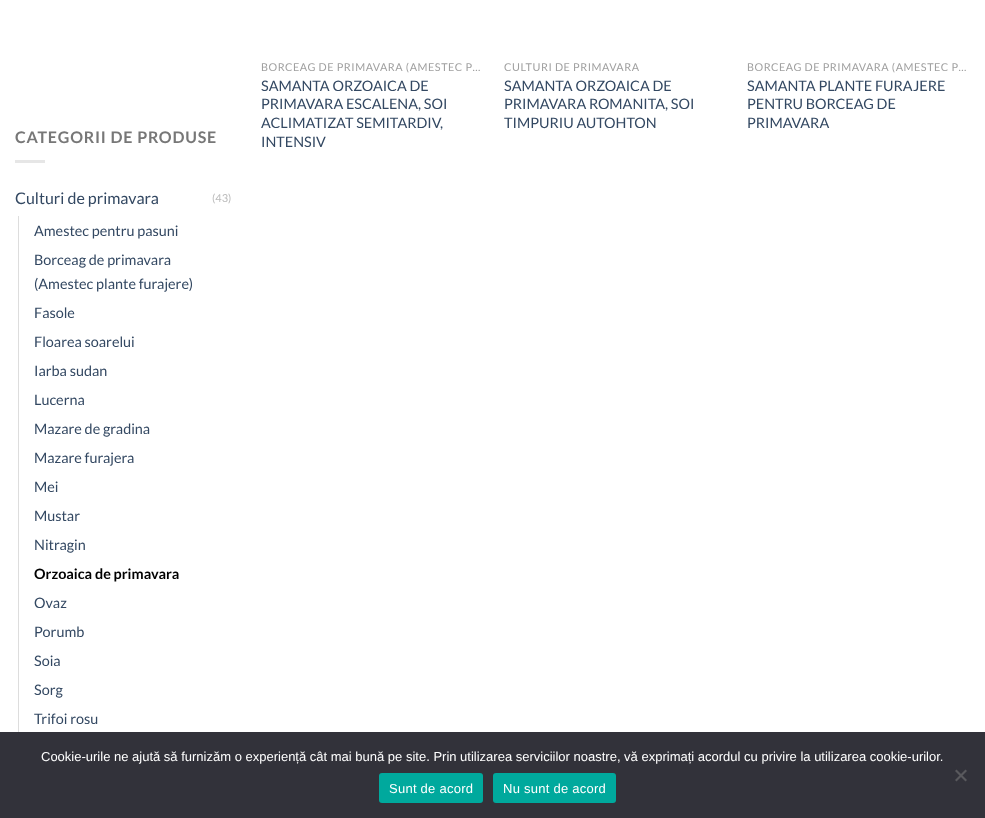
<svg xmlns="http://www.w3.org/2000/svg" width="985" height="818">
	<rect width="100%" height="100%" fill="#FFFFFF" />
	<text x="261" y="71" font-family="Lato" font-size="10.8" letter-spacing="0.55" fill="#A0A0A0">BORCEAG DE PRIMAVARA (AMESTEC P…</text>
	<g font-family="Lato" font-size="14.4" fill="#334862">
		<text x="261" y="91">SAMANTA ORZOAICA DE</text>
		<text x="261" y="109">PRIMAVARA ESCALENA, SOI</text>
		<text x="261" y="128">ACLIMATIZAT SEMITARDIV,</text>
		<text x="261" y="147">INTENSIV</text>
	</g>
	<text x="504" y="71" font-family="Lato" font-size="10.8" letter-spacing="0.55" fill="#A0A0A0">CULTURI DE PRIMAVARA</text>
	<g font-family="Lato" font-size="14.4" fill="#334862">
		<text x="504" y="91">SAMANTA ORZOAICA DE</text>
		<text x="504" y="109">PRIMAVARA ROMANITA, SOI</text>
		<text x="504" y="128">TIMPURIU AUTOHTON</text>
	</g>
	<text x="747" y="71" font-family="Lato" font-size="10.8" letter-spacing="0.55" fill="#A0A0A0">BORCEAG DE PRIMAVARA (AMESTEC P…</text>
	<g font-family="Lato" font-size="14.4" fill="#334862">
		<text x="747" y="91">SAMANTA PLANTE FURAJERE</text>
		<text x="747" y="109">PENTRU BORCEAG DE</text>
		<text x="747" y="128">PRIMAVARA</text>
	</g>
	<text x="15" y="143" font-family="Lato" font-size="16" font-weight="700" letter-spacing="0.8" fill="#777777">CATEGORII DE PRODUSE</text>
	<rect x="15" y="160" width="30" height="3" fill="#E6E6E6" />
	<text x="15" y="204" font-family="Lato" font-size="16" fill="#334862">Culturi de primavara</text>
	<text x="212" y="202" font-family="Lato" font-size="11" fill="#BBBBBB">(43)</text>
	<rect x="18" y="216" width="1" height="517" fill="#DDDDDD" />
	<g font-family="Lato" font-size="14.4" fill="#334862">
		<text x="34" y="236">Amestec pentru pasuni</text>
		<text x="34" y="265">Borceag de primavara</text>
		<text x="34" y="289">(Amestec plante furajere)</text>
		<text x="34" y="318">Fasole</text>
		<text x="34" y="347">Floarea soarelui</text>
		<text x="34" y="376">Iarba sudan</text>
		<text x="34" y="405">Lucerna</text>
		<text x="34" y="434">Mazare de gradina</text>
		<text x="34" y="463">Mazare furajera</text>
		<text x="34" y="492">Mei</text>
		<text x="34" y="521">Mustar</text>
		<text x="34" y="550">Nitragin</text>
	</g>
	<text x="34" y="579" font-family="Lato" font-size="14.4" font-weight="700" fill="#000000">Orzoaica de primavara</text>
	<g font-family="Lato" font-size="14.4" fill="#334862">
		<text x="34" y="608">Ovaz</text>
		<text x="34" y="637">Porumb</text>
		<text x="34" y="666">Soia</text>
		<text x="34" y="695">Sorg</text>
		<text x="34" y="724">Trifoi rosu</text>
	</g>
	<rect x="0" y="732" width="985" height="86" fill="#32323A" />
	<text x="41" y="761" font-family="Liberation Sans" font-size="13" fill="#FFFFFF">Cookie-urile ne ajută să furnizăm o experiență cât mai bună pe site. Prin utilizarea serviciilor noastre, vă exprimați acordul cu privire la utilizarea cookie-urilor.</text>
	<path d="M965.5 769.5L967 771L956.5 781.5L955 780Z" fill="#59595D" />
	<path d="M955 771L956.5 769.5L967 780L965.5 781.5Z" fill="#59595D" />
	<rect x="379" y="773" width="104" height="30" rx="3" fill="#00A99D" />
	<text x="389" y="793" font-family="Liberation Sans" font-size="13" letter-spacing="0.25" fill="#FFFFFF">Sunt de acord</text>
	<rect x="493" y="773" width="123" height="30" rx="3" fill="#00A99D" />
	<text x="503" y="793" font-family="Liberation Sans" font-size="13" letter-spacing="0.25" fill="#FFFFFF">Nu sunt de acord</text>
</svg>
